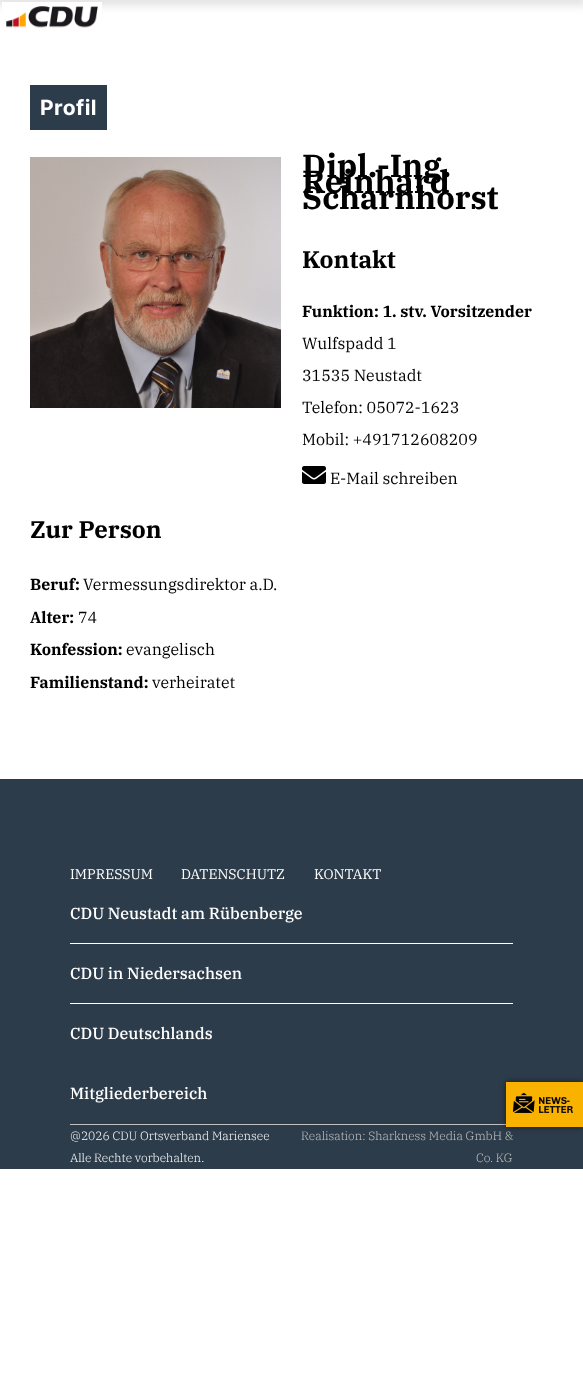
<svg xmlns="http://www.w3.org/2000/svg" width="583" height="1385">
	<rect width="100%" height="100%" fill="#FFFFFF" />
	<rect x="-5" y="-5" width="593" height="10" fill="#000000" fill-opacity="0.13" filter="blur(5px)" />
	<image x="2" y="2" width="100" height="26" href="assets/img1.png" />
	<rect x="30" y="85" width="77" height="45" fill="#2D3C4B" />
	<text x="40" y="115" font-family="Inter" font-size="21" font-weight="700" letter-spacing="0.5" fill="#FFFFFF">Profil</text>
	<image x="30" y="157" width="251" height="251" href="assets/img2.png" />
	<g font-family="IBM Plex Serif" font-size="32" font-weight="700" fill="#000000">
		<text x="302" y="177">Dipl.-Ing.</text>
		<text x="302" y="193">Reinhard</text>
		<text x="302" y="209">Scharnhorst</text>
	</g>
	<text x="302" y="268" font-family="IBM Plex Serif" font-size="24" font-weight="700" fill="#000000">Kontakt</text>
	<text x="302" y="317" font-family="IBM Plex Serif" font-size="16" font-weight="700" fill="#000000">Funktion: 1. stv. Vorsitzender</text>
	<g font-family="IBM Plex Serif" font-size="16" fill="#000000">
		<text x="302" y="349">Wulfspadd 1</text>
		<text x="302" y="381">31535 Neustadt</text>
		<text x="302" y="413">Telefon: 05072-1623</text>
		<text x="302" y="445">Mobil: +491712608209</text>
	</g>
	<image x="302" y="466" width="24" height="18" href="assets/img3.png" />
	<text x="330" y="484" font-family="IBM Plex Serif" font-size="16" fill="#000000">E-Mail schreiben</text>
	<text x="30" y="538" font-family="IBM Plex Serif" font-size="24" font-weight="700" fill="#000000">Zur Person</text>
	<text x="30" y="590" font-family="IBM Plex Serif" font-size="16" font-weight="700" fill="#000000">Beruf:</text>
	<text x="83" y="590" font-family="IBM Plex Serif" font-size="16" fill="#000000">Vermessungsdirektor a.D.</text>
	<text x="30" y="623" font-family="IBM Plex Serif" font-size="16" font-weight="700" fill="#000000">Alter:</text>
	<text x="78" y="623" font-family="IBM Plex Serif" font-size="16" fill="#000000">74</text>
	<text x="30" y="655" font-family="IBM Plex Serif" font-size="16" font-weight="700" fill="#000000">Konfession:</text>
	<text x="126" y="655" font-family="IBM Plex Serif" font-size="16" fill="#000000">evangelisch</text>
	<text x="30" y="688" font-family="IBM Plex Serif" font-size="16" font-weight="700" fill="#000000">Familienstand:</text>
	<text x="152" y="688" font-family="IBM Plex Serif" font-size="16" fill="#000000">verheiratet</text>
	<rect x="0" y="779" width="583" height="390" fill="#2D3C4B" />
	<g font-family="IBM Plex Serif" font-size="14" fill="#FFFFFF">
		<text x="70" y="879">IMPRESSUM</text>
		<text x="181" y="879">DATENSCHUTZ</text>
		<text x="314" y="879">KONTAKT</text>
	</g>
	<rect x="70" y="943" width="443" height="1" fill="#FFFFFF" />
	<text x="70" y="919" font-family="IBM Plex Serif" font-size="16" font-weight="500" fill="#FFFFFF">CDU Neustadt am Rübenberge</text>
	<rect x="70" y="1003" width="443" height="1" fill="#FFFFFF" />
	<g font-family="IBM Plex Serif" font-size="16" font-weight="500" fill="#FFFFFF">
		<text x="70" y="979">CDU in Niedersachsen</text>
		<text x="70" y="1039">CDU Deutschlands</text>
		<text x="70" y="1099">Mitgliederbereich</text>
	</g>
	<rect x="70" y="1124" width="443" height="1" fill="#C0C0C0" />
	<g font-family="IBM Plex Serif" font-size="12" font-weight="300" fill="#FFFFFF">
		<text x="70" y="1140">@2026 CDU Ortsverband Mariensee</text>
		<text x="70" y="1162">Alle Rechte vorbehalten.</text>
	</g>
	<g font-family="IBM Plex Serif" font-size="12" font-weight="300" fill="#C0C0C0">
		<text x="301" y="1140">Realisation: Sharkness Media GmbH &amp;</text>
		<text x="476" y="1162">Co. KG</text>
	</g>
	<rect x="506" y="1082" width="77" height="45" fill="#000000" fill-opacity="0.5" filter="blur(3px)" />
	<rect x="506" y="1082" width="77" height="45" fill="#FAB200" />
	<image x="513" y="1093" width="60" height="20" href="assets/img4.png" />
</svg>
